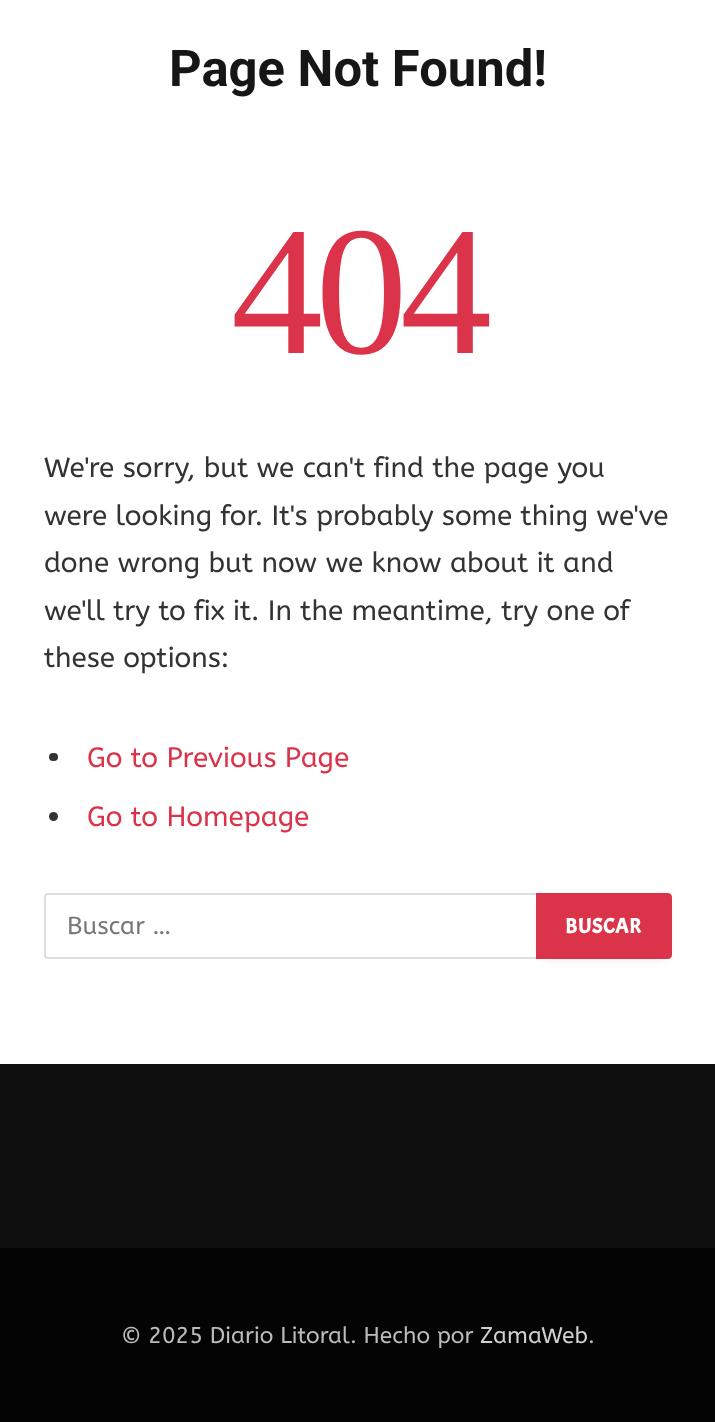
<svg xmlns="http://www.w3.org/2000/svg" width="715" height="1422">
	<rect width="100%" height="100%" fill="#FFFFFF" />
	<text x="169" y="86" font-family="Roboto" font-size="50.75" font-weight="700" fill="#161616">Page Not Found!</text>
	<text x="231" y="353" font-family="Liberation Serif" font-size="184" letter-spacing="-7.5" fill="#DA334A">404</text>
	<g font-family="ABeeZee" font-size="27.9" fill="#333333">
		<text x="44" y="477">We're sorry, but we can't find the page you</text>
		<text x="44" y="525">were looking for. It's probably some thing we've</text>
		<text x="44" y="572">done wrong but now we know about it and</text>
		<text x="44" y="620">we'll try to fix it. In the meantime, try one of</text>
		<text x="44" y="667">these options:</text>
	</g>
	<rect x="49" y="753" width="9" height="8" rx="4" fill="#333333" />
	<text x="87" y="767" font-family="ABeeZee" font-size="27.9" fill="#DA334A">Go to Previous Page</text>
	<circle cx="53.5" cy="816.5" r="4.5" fill="#333333" />
	<text x="87" y="826" font-family="ABeeZee" font-size="27.9" fill="#DA334A">Go to Homepage</text>
	<rect x="45" y="894" width="493" height="64" rx="3" fill="none" stroke="#DDDDDD" stroke-width="2" />
	<text x="67" y="934" font-family="ABeeZee" font-size="24.5" fill="#777777">Buscar …</text>
	<rect x="543" y="903" width="122" height="53" fill="#000000" fill-opacity="0.16" filter="blur(6px)" />
	<path d="M536 893H668C670 893 672 895 672 897V955C672 957 670 959 668 959H536Z" fill="#DA334A" />
	<text x="565" y="933" font-family="Acme" font-size="21" font-weight="700" letter-spacing="0.5" fill="#FFFFFF">BUSCAR</text>
	<rect x="0" y="1064" width="715" height="184" fill="#0F0F0F" />
	<rect x="0" y="1248" width="715" height="174" fill="#040404" />
	<text x="121" y="1343" font-family="ABeeZee" font-size="22.75" fill="#BBBBBB">© 2025 Diario Litoral. Hecho por</text>
	<text x="480" y="1343" font-family="ABeeZee" font-size="22.75" fill="#D1D1D1">ZamaWeb</text>
	<text x="588" y="1343" font-family="ABeeZee" font-size="22.75" fill="#BBBBBB">.</text>
</svg>
